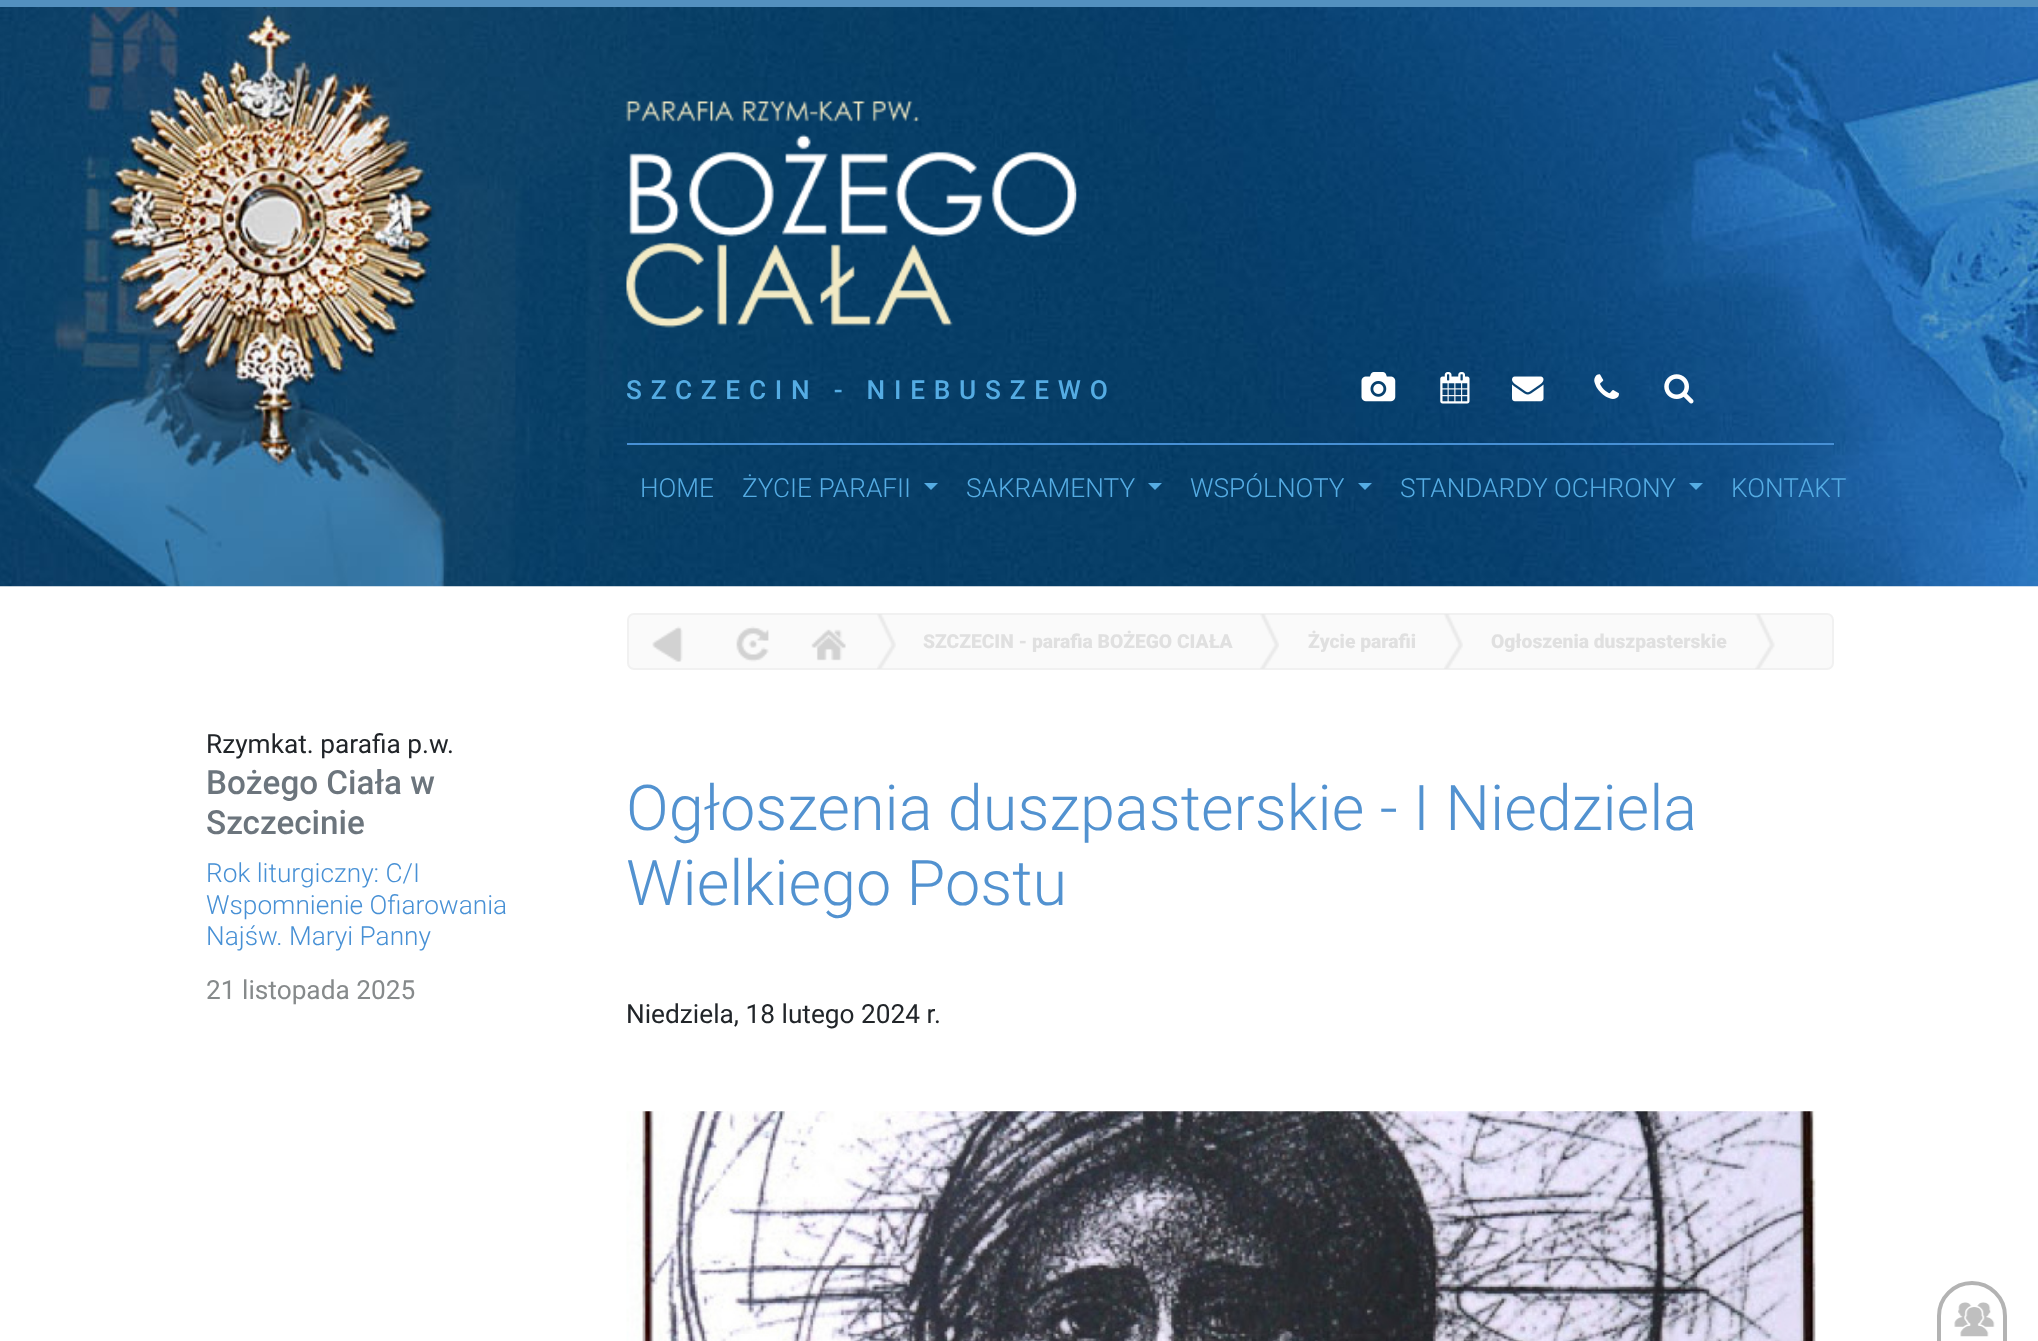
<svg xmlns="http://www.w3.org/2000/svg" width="2038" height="1341">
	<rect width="100%" height="100%" fill="#FFFFFF" />
	<rect x="0" y="0" width="2038" height="7" fill="#5390BF" />
	<image x="0" y="7" width="2038" height="580" href="assets/img1.png" />
	<image x="626" y="101" width="451" height="227" href="assets/img2.png" />
	<text x="626" y="399" font-family="Roboto" font-size="26.25" font-weight="500" letter-spacing="8.75" fill="#55ACE3">SZCZECIN - NIEBUSZEWO</text>
	<image x="1361" y="372" width="35" height="30" href="assets/img3.png" />
	<image x="1440" y="372" width="30" height="32" href="assets/img4.png" />
	<image x="1512" y="376" width="32" height="26" href="assets/img5.png" />
	<image x="1594" y="374" width="25" height="25" href="assets/img6.png" />
	<image x="1664" y="374" width="30" height="30" href="assets/img7.png" />
	<rect x="627" y="443" width="1207" height="2" fill="#4790D5" />
	<g font-family="Roboto" font-size="26.25" font-weight="300" fill="#55ACE3">
		<text x="640" y="497">HOME</text>
		<text x="742" y="497">ŻYCIE PARAFII</text>
	</g>
	<path d="M924 483H938L931 490Z" fill="#55ACE3" />
	<text x="966" y="497" font-family="Roboto" font-size="26.25" font-weight="300" fill="#55ACE3">SAKRAMENTY</text>
	<path d="M1148 483H1162L1155 490Z" fill="#55ACE3" />
	<text x="1190" y="497" font-family="Roboto" font-size="26.25" font-weight="300" fill="#55ACE3">WSPÓLNOTY</text>
	<path d="M1358 483H1372L1365 490Z" fill="#55ACE3" />
	<text x="1400" y="497" font-family="Roboto" font-size="26.25" font-weight="300" fill="#55ACE3">STANDARDY OCHRONY</text>
	<path d="M1689 483H1703L1696 490Z" fill="#55ACE3" />
	<text x="1731" y="497" font-family="Roboto" font-size="26.25" font-weight="300" fill="#55ACE3">KONTAKT</text>
	<text x="206" y="753" font-family="Roboto" font-size="26.25" fill="#212529">Rzymkat. parafia p.w.</text>
	<g font-family="Roboto" font-size="33.25" font-weight="500" fill="#6C757D">
		<text x="206" y="794">Bożego Ciała w</text>
		<text x="206" y="834">Szczecinie</text>
	</g>
	<g font-family="Roboto" font-size="26.25" font-weight="300" fill="#4790D5">
		<text x="206" y="882">Rok liturgiczny: C/I</text>
		<text x="206" y="914">Wspomnienie Ofiarowania</text>
		<text x="206" y="945">Najśw. Maryi Panny</text>
	</g>
	<text x="206" y="999" font-family="Roboto" font-size="26.25" fill="#868A8B">21 listopada 2025</text>
	<rect x="628" y="614" width="1205" height="55" rx="6" fill="#FAFAFA" stroke="#F1F1F1" stroke-width="2" />
	<image x="652" y="626" width="31" height="36" href="assets/img8.png" />
	<image x="736" y="626" width="33" height="36" href="assets/img9.png" />
	<image x="811" y="629" width="35" height="32" href="assets/img10.png" />
	<image x="877" y="614" width="19" height="55" href="assets/img11.png" />
	<text x="923" y="648" font-family="Roboto" font-size="19.25" font-weight="900" fill="#E0E0E0">SZCZECIN - parafia BOŻEGO CIAŁA</text>
	<image x="1260" y="614" width="19" height="55" href="assets/img12.png" />
	<text x="1308" y="648" font-family="Roboto" font-size="19.25" font-weight="900" fill="#E0E0E0">Życie parafii</text>
	<image x="1444" y="614" width="19" height="55" href="assets/img11.png" />
	<text x="1491" y="648" font-family="Roboto" font-size="19.25" font-weight="900" fill="#E0E0E0">Ogłoszenia duszpasterskie</text>
	<image x="1755" y="614" width="20" height="55" href="assets/img13.png" />
	<g font-family="Roboto" font-size="63" font-weight="300" fill="#5292D0">
		<text x="626" y="830">Ogłoszenia duszpasterskie - I Niedziela</text>
		<text x="626" y="905">Wielkiego Postu</text>
	</g>
	<text x="626" y="1023" font-family="Roboto" font-size="26.25" fill="#212529">Niedziela, 18 lutego 2024 r.</text>
	<image x="626" y="1111" width="1190" height="230" href="assets/img14.png" />
	<image x="1954" y="1302" width="41" height="35" href="assets/img15.png" />
	<rect x="1939" y="1283" width="66" height="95" rx="33" fill="none" stroke="#B3B3B3" stroke-width="4" />
</svg>
